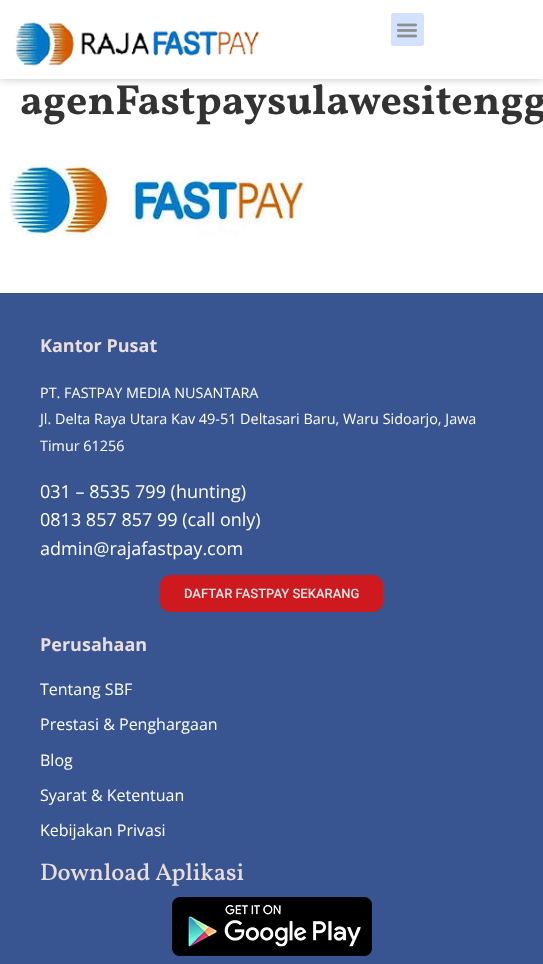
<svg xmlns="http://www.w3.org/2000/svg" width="543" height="964">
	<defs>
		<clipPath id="clip1"><rect x="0" y="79" width="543" height="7" /></clipPath>
	</defs>
	<rect width="100%" height="100%" fill="#FFFFFF" />
	<g clip-path="url(#clip1)">
		<rect x="0" y="0" width="543" height="79" fill="#000000" fill-opacity="0.23" filter="blur(5px)" />
	</g>
	<image x="14" y="22" width="246" height="44" href="assets/img1.png" />
	<rect x="391" y="13" width="33" height="33" rx="3" fill="#D2E2FF" />
	<image x="397" y="23" width="20" height="15" href="assets/img2.png" />
	<text x="20" y="114" font-family="Vollkorn" font-size="42" font-weight="700" fill="#333333">agenFastpaysulawesitengg</text>
	<image x="10" y="160" width="296" height="81" href="assets/img3.png" />
	<rect x="0" y="293" width="543" height="671" fill="#395591" />
	<text x="40" y="352" font-family="Open Sans" font-size="18" font-weight="700" fill="#E9DEDE">Kantor Pusat</text>
	<g font-family="Open Sans" font-size="14.4" fill="#FFFFFF">
		<text x="40" y="398">PT. FASTPAY MEDIA NUSANTARA</text>
		<text x="40" y="424">Jl. Delta Raya Utara Kav 49-51 Deltasari Baru, Waru Sidoarjo, Jawa</text>
		<text x="40" y="451">Timur 61256</text>
	</g>
	<g font-family="Open Sans" font-size="18" fill="#FFFFFF">
		<text x="40" y="498">031 – 8535 799 (hunting)</text>
		<text x="40" y="526">0813 857 857 99 (call only)</text>
		<text x="40" y="555">admin@rajafastpay.com</text>
	</g>
	<rect x="160" y="575" width="223" height="37" rx="10" fill="#CE191E" />
	<text x="184" y="598" font-family="Roboto" font-size="13" font-weight="500" fill="#F0E6E6">DAFTAR FASTPAY SEKARANG</text>
	<text x="40" y="651" font-family="Open Sans" font-size="18" font-weight="700" fill="#E9DEDE">Perusahaan</text>
	<g font-family="Open Sans" font-size="16" fill="#FFFFFF">
		<text x="40" y="695">Tentang SBF</text>
		<text x="40" y="730">Prestasi &amp; Penghargaan</text>
		<text x="40" y="766">Blog</text>
		<text x="40" y="801">Syarat &amp; Ketentuan</text>
		<text x="40" y="836">Kebijakan Privasi</text>
	</g>
	<text x="40" y="880" font-family="Vollkorn" font-size="24" font-weight="500" fill="#E9DEDE">Download Aplikasi</text>
	<image x="172" y="897" width="200" height="59" href="assets/img4.png" />
</svg>
